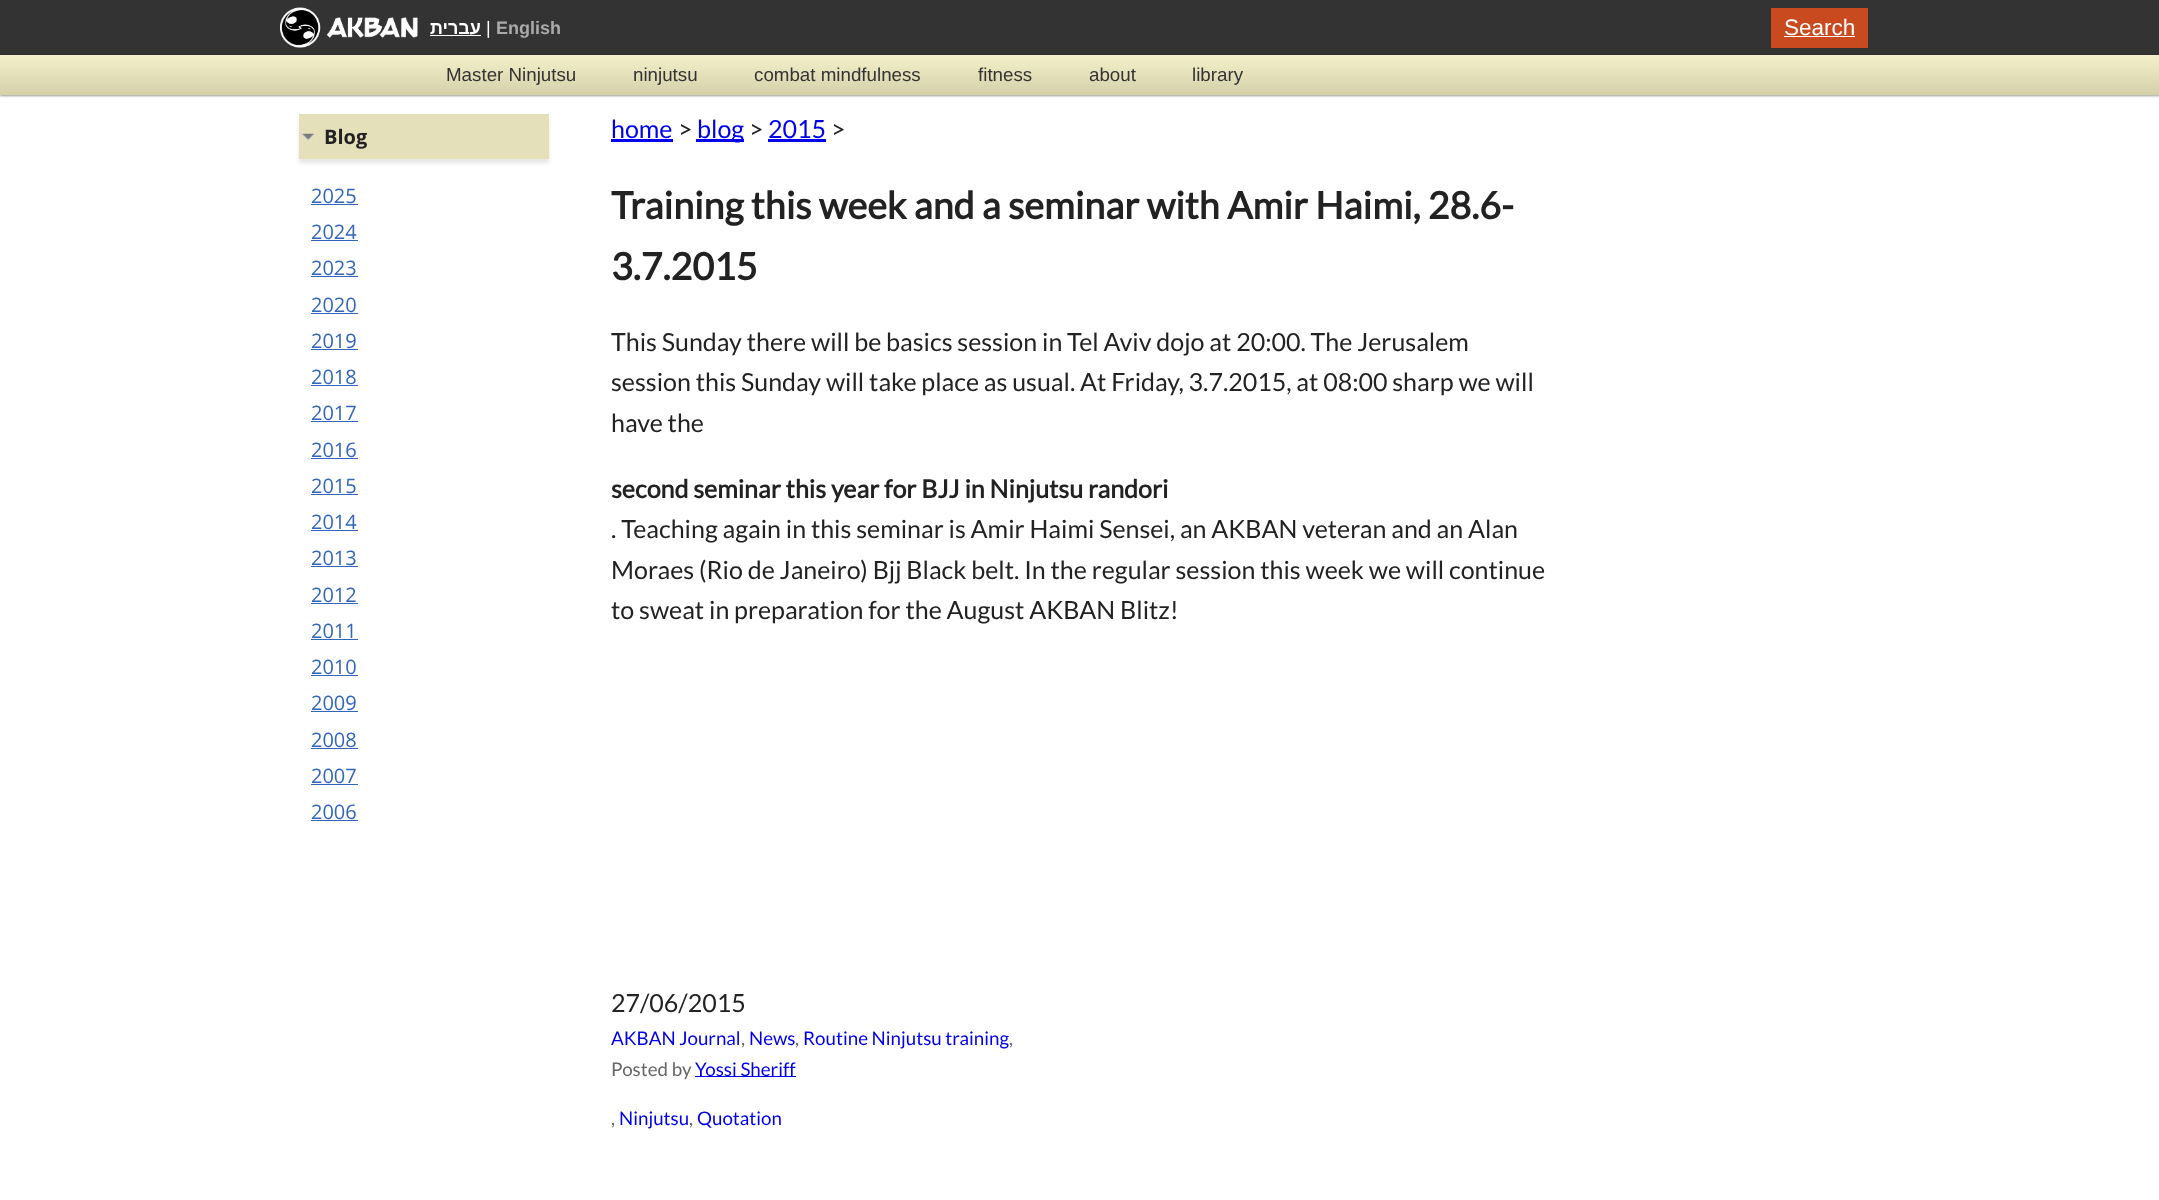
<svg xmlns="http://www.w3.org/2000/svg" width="2159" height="1200">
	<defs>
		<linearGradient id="g1" gradientUnits="userSpaceOnUse" x1="1080" y1="55" x2="1080" y2="95"><stop offset="0" stop-color="#F4F1CA" /><stop offset="1" stop-color="#D4D1AA" /></linearGradient>
	</defs>
	<rect width="100%" height="100%" fill="#FFFFFF" />
	<rect x="0" y="0" width="2159" height="55" fill="#333333" />
	<image x="280" y="7" width="138" height="41" href="assets/img1.png" />
	<text x="481" y="34" font-family="Liberation Sans" font-size="18" font-weight="700" direction="rtl" fill="#FFFFFF">עברית</text>
	<rect x="430" y="35" width="51" height="1" fill="#FFFFFF" />
	<text x="486" y="34" font-family="Liberation Sans" font-size="18" fill="#FFFFFF">|</text>
	<text x="496" y="34" font-family="Liberation Sans" font-size="18" font-weight="700" fill="#AAAAAA">English</text>
	<rect x="1771" y="8" width="97" height="40" fill="#CA4A1F" />
	<text x="1784" y="35" font-family="Liberation Sans" font-size="22.5" fill="#FFFFFF">Search</text>
	<rect x="1784" y="36" width="71" height="1" fill="#FFFFFF" />
	<rect x="0" y="56" width="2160" height="40" fill="#000000" fill-opacity="0.4" filter="blur(1px)" />
	<rect x="0" y="55" width="2159" height="40" fill="url(#g1)" />
	<g font-family="Liberation Sans" font-size="18.75" fill="#333333">
		<text x="446" y="81">Master Ninjutsu</text>
		<text x="633" y="81">ninjutsu</text>
		<text x="754" y="81">combat mindfulness</text>
		<text x="978" y="81">fitness</text>
		<text x="1089" y="81">about</text>
		<text x="1192" y="81">library</text>
	</g>
	<rect x="299" y="118" width="250" height="45" fill="#000000" fill-opacity="0.1" filter="blur(2px)" />
	<rect x="299" y="114" width="250" height="45" fill="#E4E1BA" />
	<image x="301" y="133" width="14" height="8" href="assets/img2.png" />
	<text x="324" y="144" font-family="Open Sans" font-size="20" font-weight="700" fill="#222222">Blog</text>
	<text x="311" y="203" font-family="Open Sans" font-size="20" fill="#3366BB">2025</text>
	<rect x="311" y="204" width="47" height="1" fill="#3366BB" />
	<text x="311" y="239" font-family="Open Sans" font-size="20" fill="#3366BB">2024</text>
	<rect x="311" y="240" width="47" height="1" fill="#3366BB" />
	<text x="311" y="275" font-family="Open Sans" font-size="20" fill="#3366BB">2023</text>
	<rect x="311" y="276" width="47" height="1" fill="#3366BB" />
	<text x="311" y="312" font-family="Open Sans" font-size="20" fill="#3366BB">2020</text>
	<rect x="311" y="313" width="47" height="1" fill="#3366BB" />
	<text x="311" y="348" font-family="Open Sans" font-size="20" fill="#3366BB">2019</text>
	<rect x="311" y="349" width="47" height="1" fill="#3366BB" />
	<text x="311" y="384" font-family="Open Sans" font-size="20" fill="#3366BB">2018</text>
	<rect x="311" y="385" width="47" height="1" fill="#3366BB" />
	<text x="311" y="420" font-family="Open Sans" font-size="20" fill="#3366BB">2017</text>
	<rect x="311" y="421" width="47" height="1" fill="#3366BB" />
	<text x="311" y="457" font-family="Open Sans" font-size="20" fill="#3366BB">2016</text>
	<rect x="311" y="458" width="47" height="1" fill="#3366BB" />
	<text x="311" y="493" font-family="Open Sans" font-size="20" fill="#3366BB">2015</text>
	<rect x="311" y="494" width="47" height="1" fill="#3366BB" />
	<text x="311" y="529" font-family="Open Sans" font-size="20" fill="#3366BB">2014</text>
	<rect x="311" y="530" width="47" height="1" fill="#3366BB" />
	<text x="311" y="565" font-family="Open Sans" font-size="20" fill="#3366BB">2013</text>
	<rect x="311" y="566" width="47" height="1" fill="#3366BB" />
	<text x="311" y="602" font-family="Open Sans" font-size="20" fill="#3366BB">2012</text>
	<rect x="311" y="603" width="47" height="1" fill="#3366BB" />
	<text x="311" y="638" font-family="Open Sans" font-size="20" fill="#3366BB">2011</text>
	<rect x="311" y="639" width="47" height="1" fill="#3366BB" />
	<text x="311" y="674" font-family="Open Sans" font-size="20" fill="#3366BB">2010</text>
	<rect x="311" y="675" width="47" height="1" fill="#3366BB" />
	<text x="311" y="710" font-family="Open Sans" font-size="20" fill="#3366BB">2009</text>
	<rect x="311" y="711" width="47" height="1" fill="#3366BB" />
	<text x="311" y="747" font-family="Open Sans" font-size="20" fill="#3366BB">2008</text>
	<rect x="311" y="748" width="47" height="1" fill="#3366BB" />
	<text x="311" y="783" font-family="Open Sans" font-size="20" fill="#3366BB">2007</text>
	<rect x="311" y="784" width="47" height="1" fill="#3366BB" />
	<text x="311" y="819" font-family="Open Sans" font-size="20" fill="#3366BB">2006</text>
	<rect x="311" y="820" width="47" height="1" fill="#3366BB" />
	<text x="611" y="138" font-family="Lato" font-size="25" fill="#0000EE">home</text>
	<rect x="611" y="139" width="62" height="3" fill="#0000EE" />
	<text x="678" y="138" font-family="Lato" font-size="25" fill="#222222">&gt;</text>
	<rect x="696" y="139" width="48" height="3" fill="#0000EE" />
	<text x="697" y="138" font-family="Lato" font-size="25" fill="#0000EE">blog</text>
	<text x="749" y="138" font-family="Lato" font-size="25" fill="#222222">&gt;</text>
	<text x="768" y="138" font-family="Lato" font-size="25" fill="#0000EE">2015</text>
	<rect x="768" y="139" width="58" height="3" fill="#0000EE" />
	<text x="831" y="138" font-family="Lato" font-size="25" fill="#222222">&gt;</text>
	<g font-family="Lato" font-size="37.5" font-weight="700" fill="#222222">
		<text x="611" y="219">Training this week and a seminar with Amir Haimi, 28.6-</text>
		<text x="611" y="280">3.7.2015</text>
	</g>
	<g font-family="Lato" font-size="25" fill="#222222">
		<text x="611" y="351">This Sunday there will be basics session in Tel Aviv dojo at 20:00. The Jerusalem</text>
		<text x="611" y="391">session this Sunday will take place as usual. At Friday, 3.7.2015, at 08:00 sharp we will</text>
		<text x="611" y="432">have the</text>
	</g>
	<text x="611" y="498" font-family="Lato" font-size="25" font-weight="700" fill="#222222">second seminar this year for BJJ in Ninjutsu randori</text>
	<g font-family="Lato" font-size="25" fill="#222222">
		<text x="611" y="538">. Teaching again in this seminar is Amir Haimi Sensei, an AKBAN veteran and an Alan</text>
		<text x="611" y="579">Moraes (Rio de Janeiro) Bjj Black belt. In the regular session this week we will continue</text>
		<text x="611" y="619">to sweat in preparation for the August AKBAN Blitz!</text>
		<text x="611" y="1012">27/06/2015</text>
	</g>
	<text x="611" y="1045" font-family="Lato" font-size="18.75" fill="#0000EE">AKBAN Journal</text>
	<text x="741" y="1045" font-family="Lato" font-size="18.75" fill="#666666">,</text>
	<text x="749" y="1045" font-family="Lato" font-size="18.75" fill="#0000EE">News</text>
	<text x="795" y="1045" font-family="Lato" font-size="18.75" fill="#666666">,</text>
	<text x="803" y="1045" font-family="Lato" font-size="18.75" fill="#0000EE">Routine Ninjutsu training</text>
	<g font-family="Lato" font-size="18.75" fill="#666666">
		<text x="1009" y="1045">,</text>
		<text x="611" y="1076">Posted by</text>
	</g>
	<rect x="695" y="1076" width="101" height="1" fill="#0000EE" />
	<text x="695" y="1076" font-family="Lato" font-size="18.75" fill="#0000EE">Yossi Sheriff</text>
	<text x="611" y="1125" font-family="Lato" font-size="18.75" fill="#666666">,</text>
	<text x="619" y="1125" font-family="Lato" font-size="18.75" fill="#0000EE">Ninjutsu</text>
	<text x="689" y="1125" font-family="Lato" font-size="18.75" fill="#666666">,</text>
	<text x="697" y="1125" font-family="Lato" font-size="18.75" fill="#0000EE">Quotation</text>
</svg>
